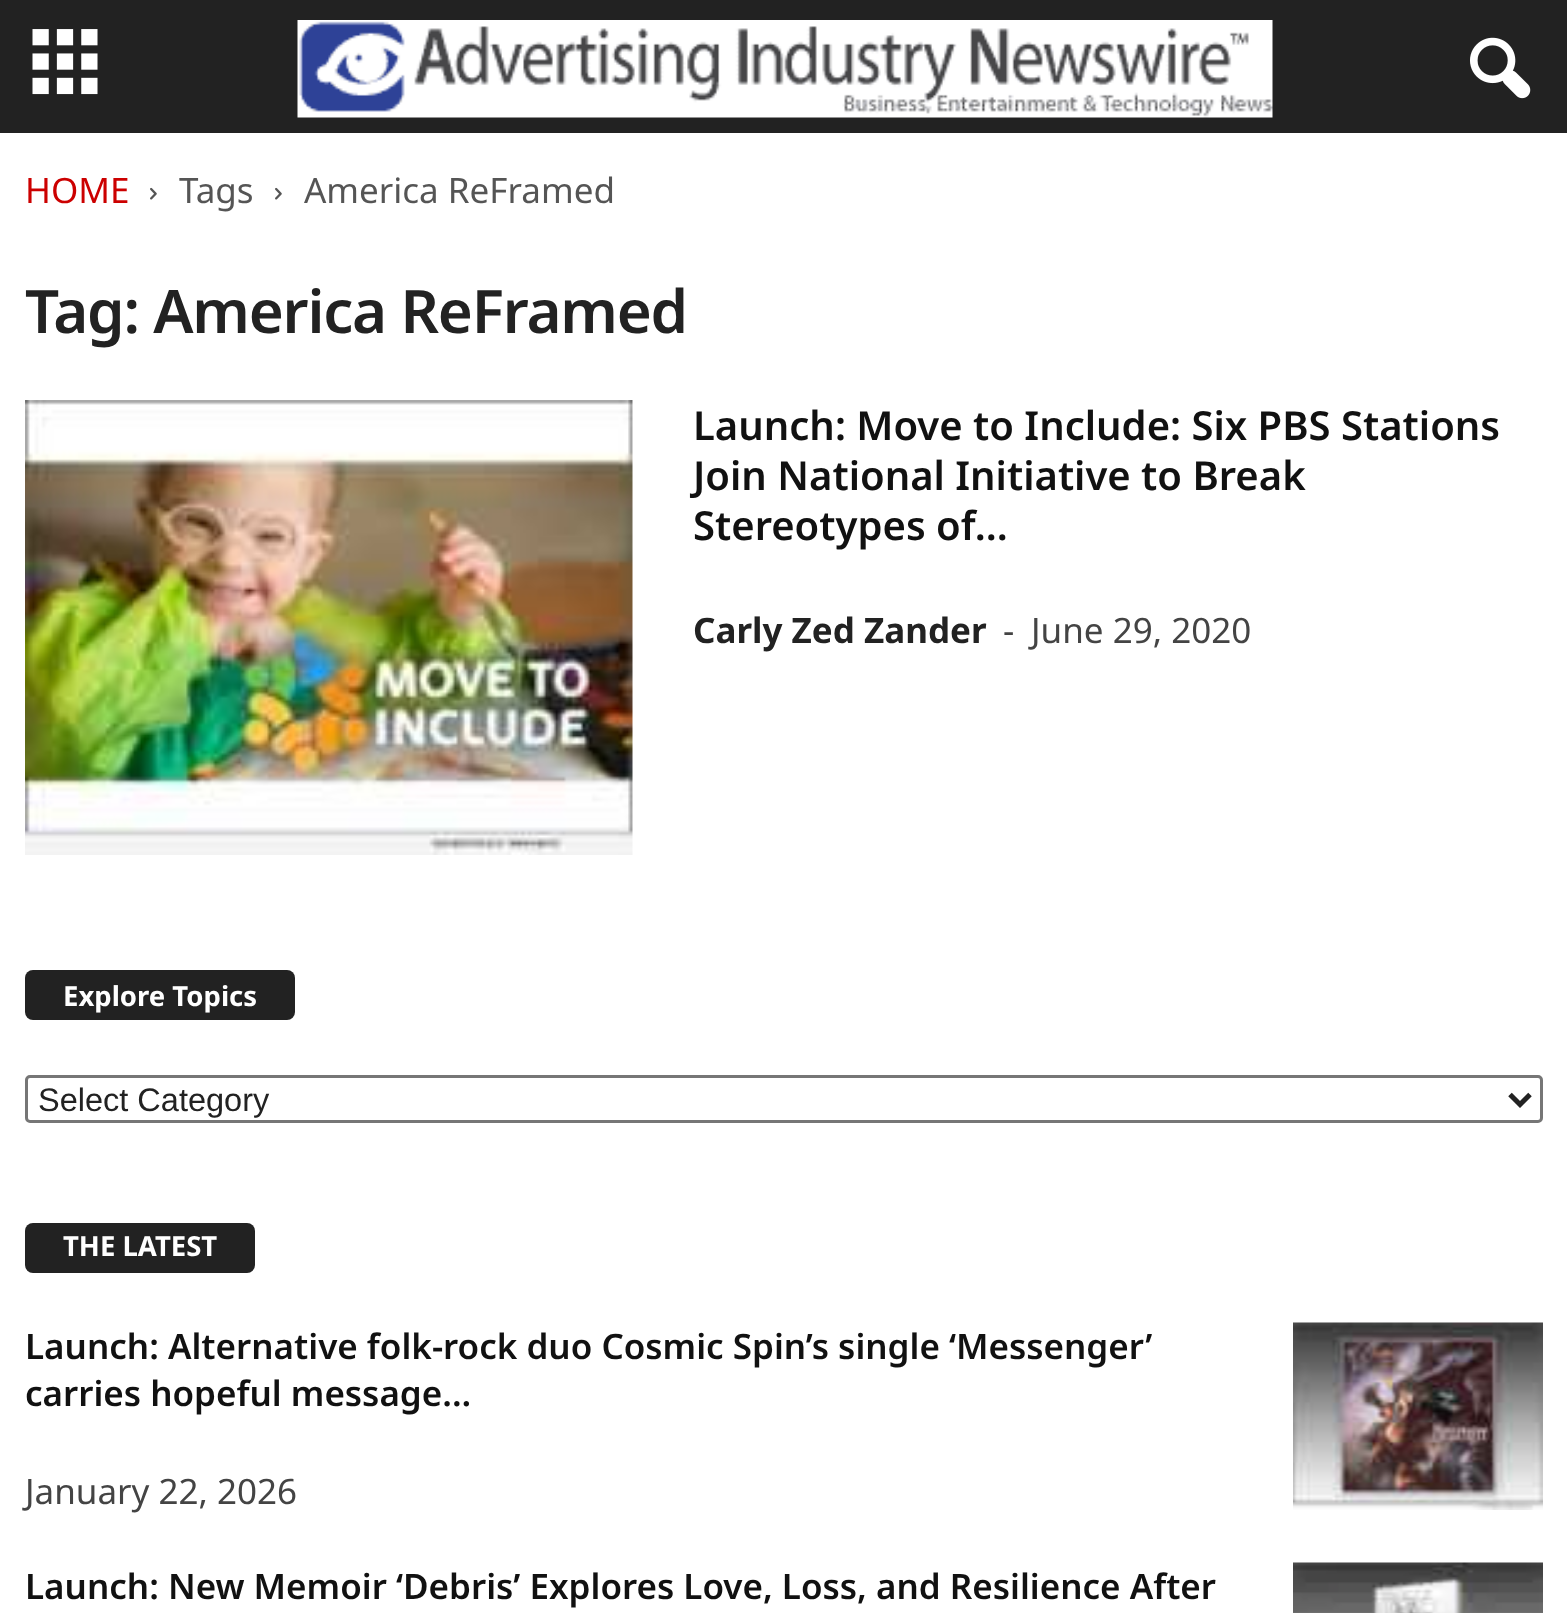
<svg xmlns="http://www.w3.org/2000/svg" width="1567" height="1613">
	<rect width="100%" height="100%" fill="#FFFFFF" />
	<rect x="0" y="0" width="1567" height="133" fill="#222222" />
	<image x="32" y="29" width="66" height="66" href="assets/img1.png" />
	<image x="297" y="20" width="976" height="98" href="assets/img2.png" />
	<image x="1470" y="37" width="61" height="62" href="assets/img3.png" />
	<text x="25" y="203" font-family="Noto Sans" font-size="35" fill="#CC0000">HOME</text>
	<image x="150" y="187" width="7" height="13" href="assets/img4.png" />
	<text x="179" y="203" font-family="Noto Sans" font-size="35" fill="#555555">Tags</text>
	<image x="275" y="187" width="7" height="13" href="assets/img4.png" />
	<text x="304" y="203" font-family="Noto Sans" font-size="35" fill="#555555">America ReFramed</text>
	<text x="25" y="333" font-family="Noto Sans" font-size="60" font-weight="600" letter-spacing="-1.2" fill="#222222">Tag: America ReFramed</text>
	<image x="25" y="400" width="608" height="455" href="assets/img5.png" />
	<g font-family="Noto Sans" font-size="40" font-weight="600" fill="#111111">
		<text x="693" y="440">Launch: Move to Include: Six PBS Stations</text>
		<text x="693" y="490">Join National Initiative to Break</text>
		<text x="693" y="540">Stereotypes of...</text>
	</g>
	<text x="693" y="643" font-family="Noto Sans" font-size="35" font-weight="700" fill="#222222">Carly Zed Zander</text>
	<g font-family="Noto Sans" font-size="35" fill="#444444">
		<text x="1003" y="643">-</text>
		<text x="1031" y="643">June 29, 2020</text>
	</g>
	<rect x="25" y="970" width="270" height="50" rx="8" fill="#222222" />
	<text x="63" y="1006" font-family="Noto Sans" font-size="27.5" font-weight="700" fill="#FFFFFF">Explore Topics</text>
	<rect x="26.5" y="1076.5" width="1515" height="45" rx="3.5" fill="none" stroke="#767676" stroke-width="3" />
	<path d="M1510 1094.5L1520 1104.5L1530 1094.5" fill="none" stroke="#222222" stroke-width="5" />
	<text x="38" y="1111" font-family="Liberation Sans" font-size="32.5" fill="#222222">Select Category</text>
	<rect x="25" y="1223" width="230" height="50" rx="8" fill="#222222" />
	<text x="63" y="1256" font-family="Noto Sans" font-size="27.5" font-weight="700" fill="#FFFFFF">THE LATEST</text>
	<g font-family="Noto Sans" font-size="35" font-weight="600" fill="#111111">
		<text x="25" y="1359">Launch: Alternative folk-rock duo Cosmic Spin’s single ‘Messenger’</text>
		<text x="25" y="1406">carries hopeful message...</text>
	</g>
	<text x="25" y="1504" font-family="Noto Sans" font-size="35" fill="#444444">January 22, 2026</text>
	<image x="1293" y="1322" width="250" height="188" href="assets/img6.png" />
	<text x="25" y="1599" font-family="Noto Sans" font-size="35" font-weight="600" fill="#111111">Launch: New Memoir ‘Debris’ Explores Love, Loss, and Resilience After</text>
	<image x="1293" y="1562" width="250" height="51" href="assets/img7.png" />
</svg>
